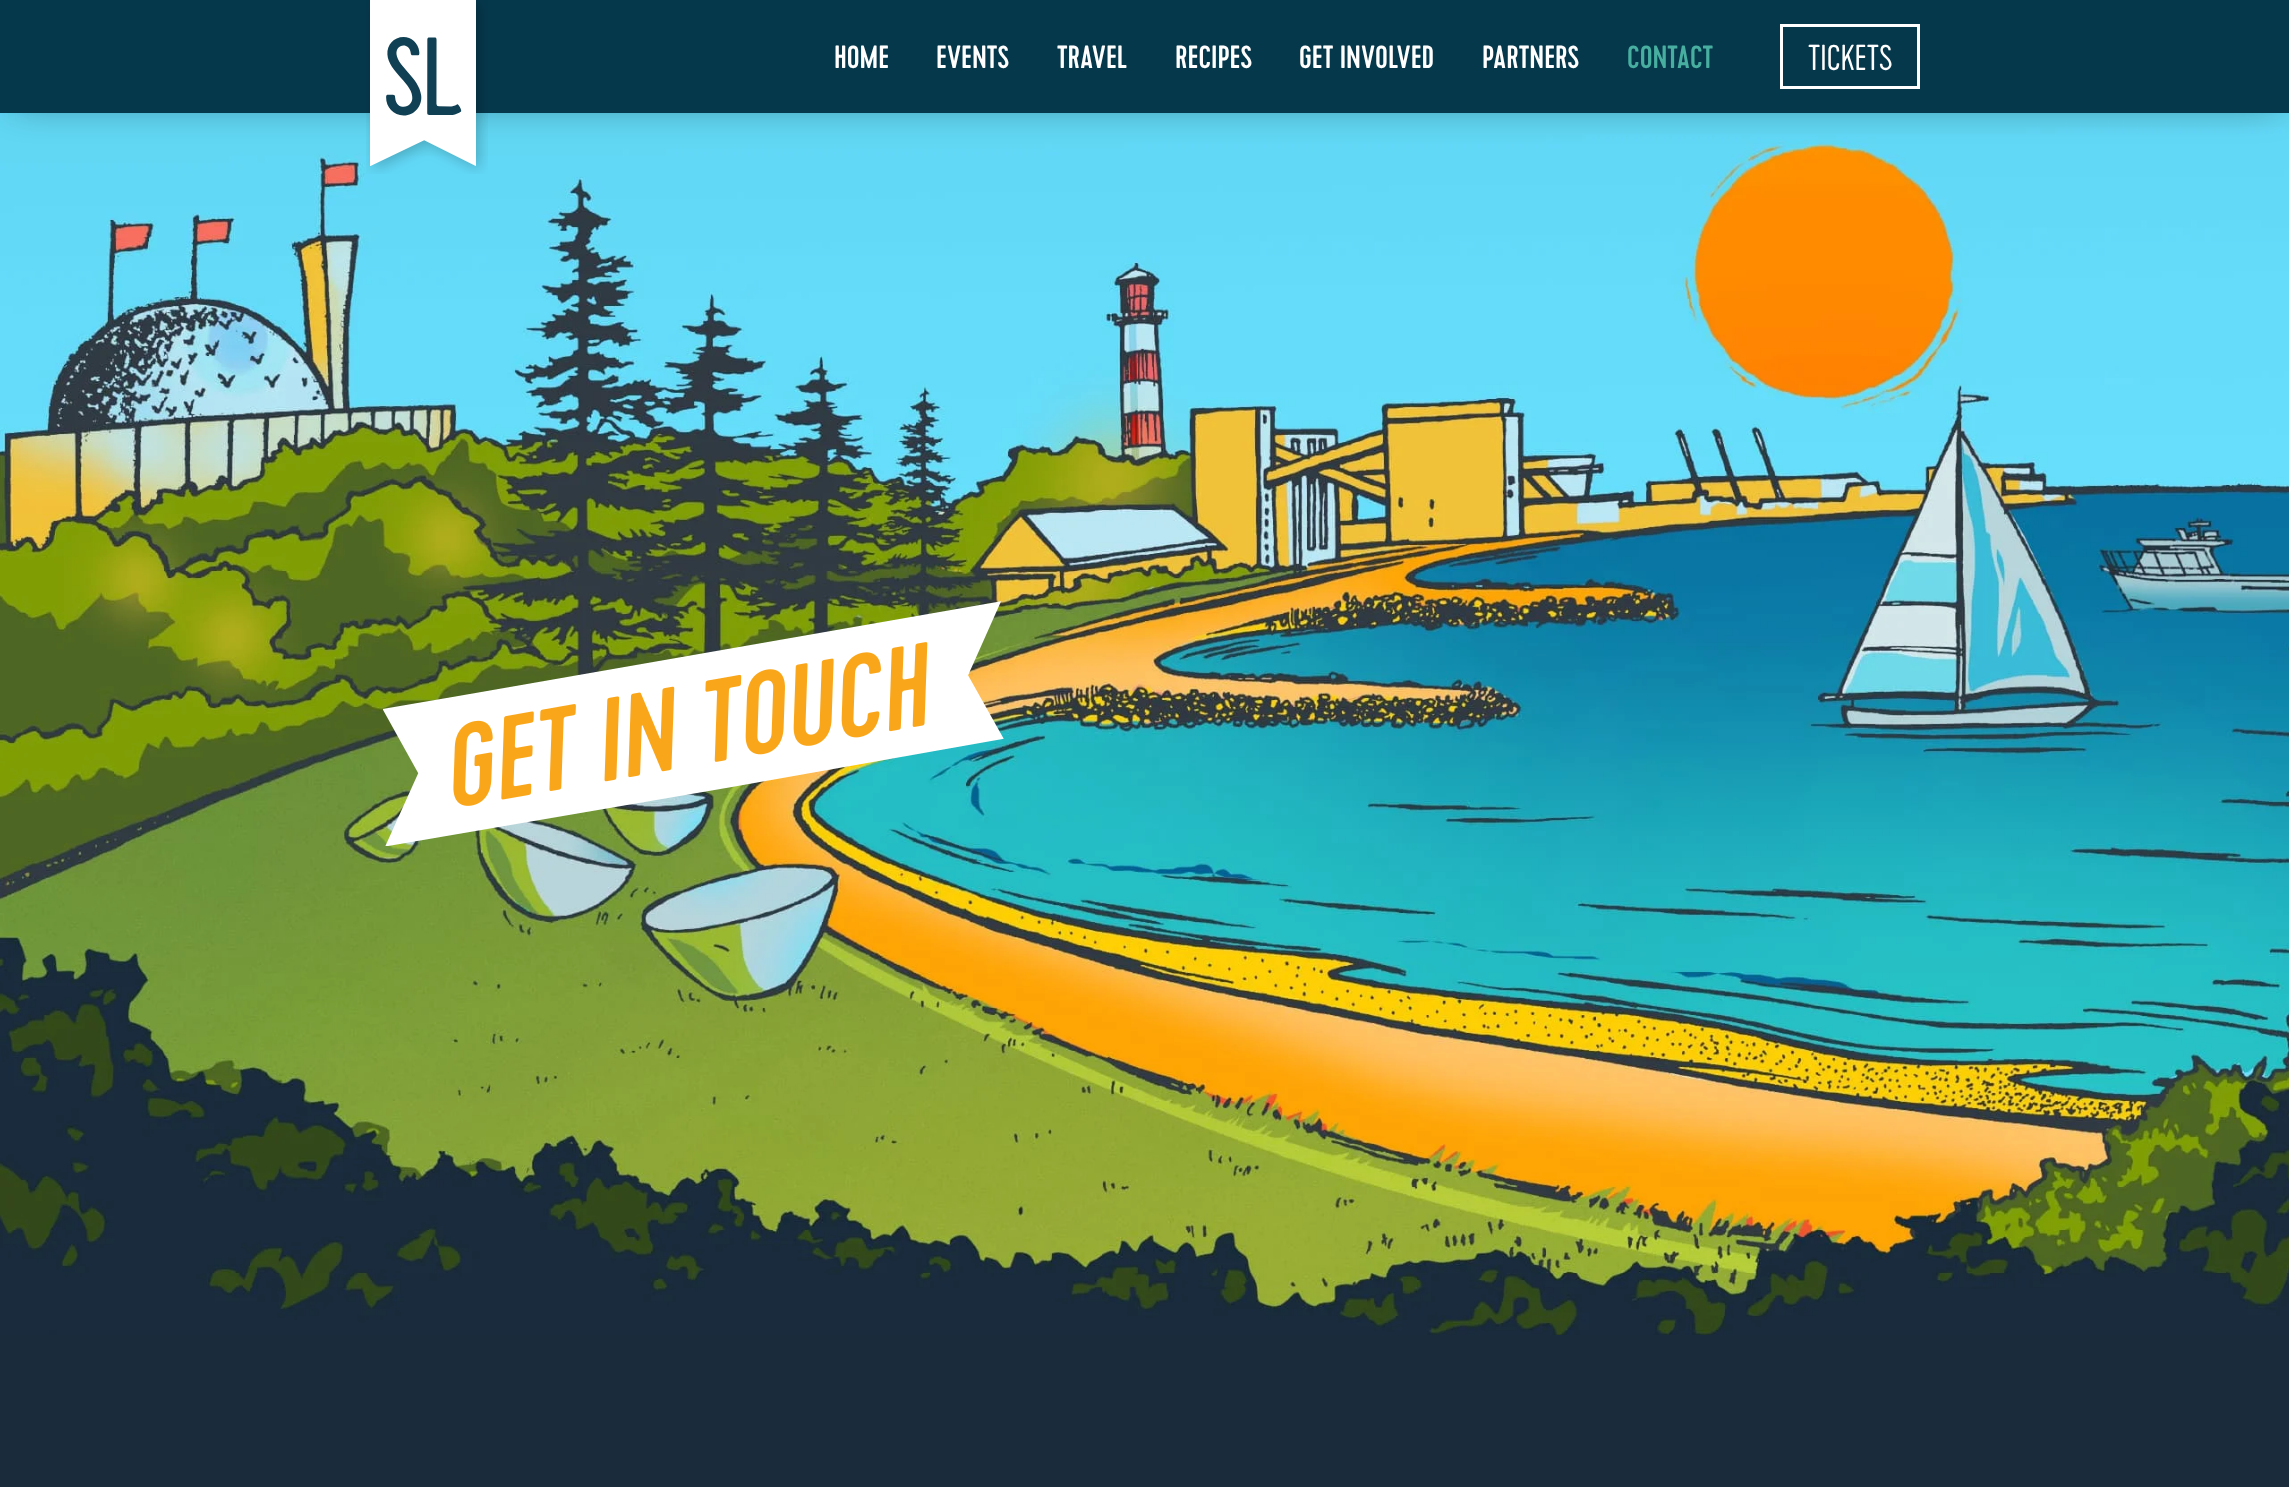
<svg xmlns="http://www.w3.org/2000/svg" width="2289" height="1487">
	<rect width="100%" height="100%" fill="#FFFFFF" />
	<image x="0" y="113" width="2289" height="1222" href="assets/img2.png" />
	<rect x="13" y="13" width="2265" height="87" fill="#000000" fill-opacity="0.5" filter="blur(19px)" />
	<rect x="0" y="0" width="2289" height="113" fill="#06384C" />
	<image x="366" y="0" width="122" height="174" href="assets/img1.png" />
	<g font-family="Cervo" font-size="32" font-weight="500" fill="#FFFFFF">
		<text x="834" y="68">HOME</text>
		<text x="936" y="68">EVENTS</text>
		<text x="1057" y="68">TRAVEL</text>
		<text x="1175" y="68">RECIPES</text>
		<text x="1299" y="68">GET INVOLVED</text>
		<text x="1482" y="68">PARTNERS</text>
	</g>
	<text x="1627" y="68" font-family="Cervo" font-size="32" font-weight="500" fill="#47AEA0">CONTACT</text>
	<rect x="1781.5" y="25.5" width="137" height="62" fill="none" stroke="#FFFFFF" stroke-width="3" />
	<text x="1808" y="70" font-family="Cervo" font-size="36" font-weight="300" fill="#FFFFFF">TICKETS</text>
	<image x="383" y="601" width="621" height="245" href="assets/img3.png" />
	<rect x="0" y="1335" width="2289" height="152" fill="#1A2B3B" />
</svg>
